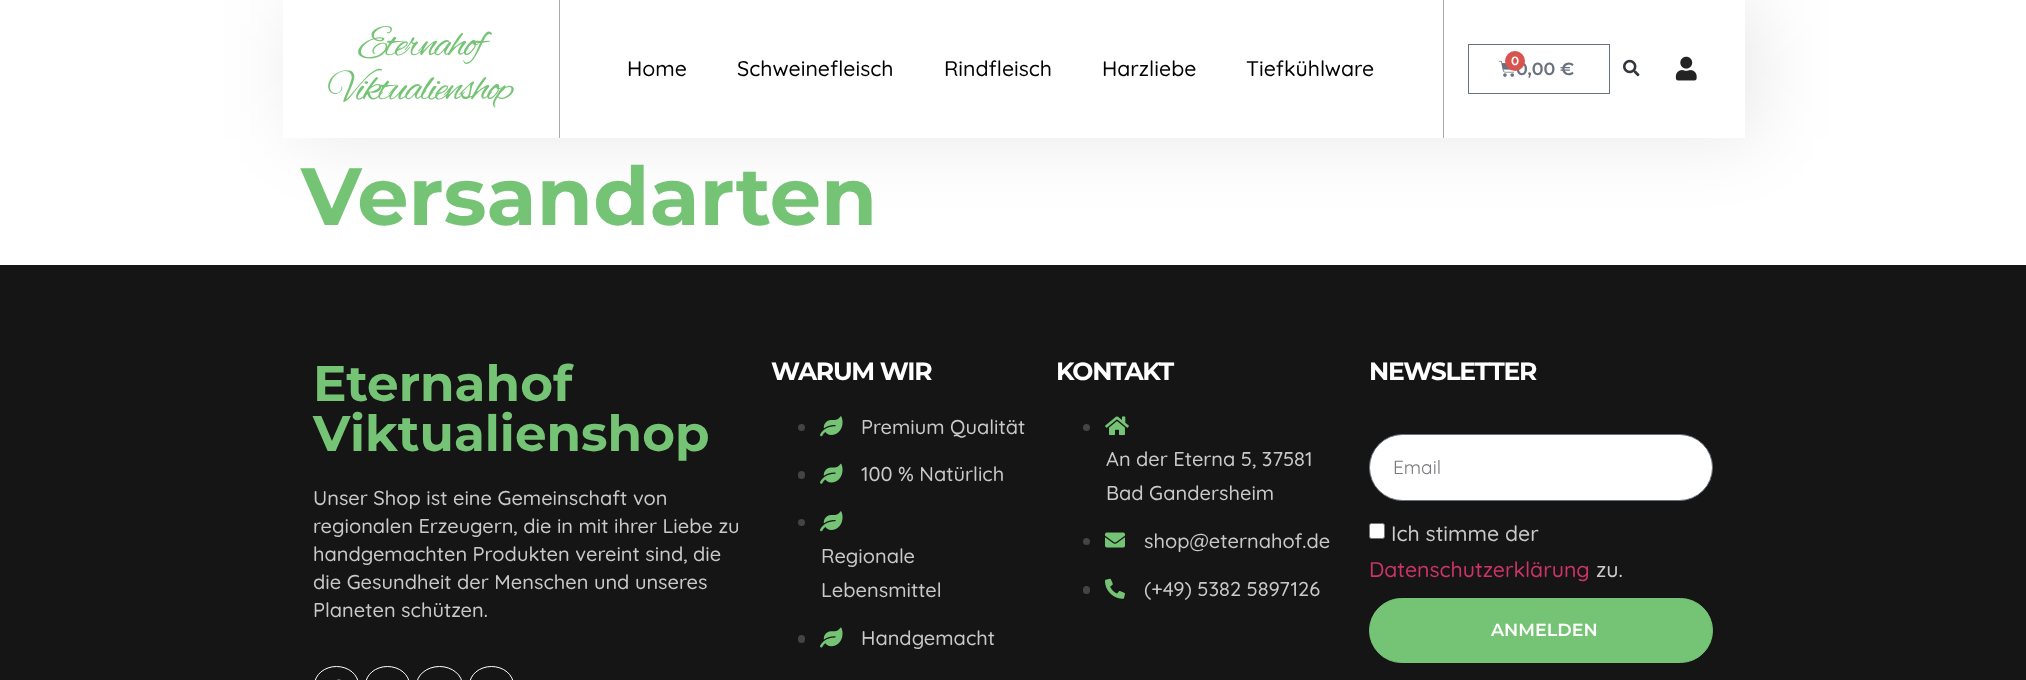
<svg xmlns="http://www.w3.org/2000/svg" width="2026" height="680">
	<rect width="100%" height="100%" fill="#FFFFFF" />
	<rect x="295" y="0" width="1463" height="138" fill="#000000" fill-opacity="0.09" filter="blur(37.5px)" />
	<rect x="283" y="0" width="1462" height="138" fill="#FFFFFF" />
	<rect x="559" y="0" width="1" height="138" fill="#AAAAAA" />
	<g font-family="Alex Brush" font-size="43.75" letter-spacing="-2.5" fill="#75C475">
		<text x="358" y="55">Eternahof</text>
		<text x="329" y="99">Viktualienshop</text>
	</g>
	<g font-family="Quicksand" font-size="21.25" font-weight="500" fill="#000000">
		<text x="627" y="76">Home</text>
		<text x="737" y="76">Schweinefleisch</text>
		<text x="944" y="76">Rindfleisch</text>
		<text x="1102" y="76">Harzliebe</text>
		<text x="1246" y="76">Tiefkühlware</text>
	</g>
	<rect x="1443" y="0" width="1" height="138" fill="#AAAAAA" />
	<rect x="1468.5" y="44.5" width="141" height="49" fill="none" stroke="#69727D" />
	<image x="1498" y="60" width="16" height="17" href="assets/img1.png" />
	<text x="1516" y="75" font-family="Montserrat" font-size="17.5" font-weight="600" fill="#69727D">0,00 €</text>
	<circle cx="1515" cy="61" r="10" fill="#D9534F" />
	<text x="1511" y="65" font-family="Montserrat" font-size="12" font-weight="600" fill="#FFFFFF">0</text>
	<image x="1623" y="59" width="17" height="18" href="assets/img2.png" />
	<image x="1675" y="56" width="22" height="25" href="assets/img3.png" />
	<text x="301" y="225" font-family="Montserrat" font-size="81.25" font-weight="700" fill="#75C475">Versandarten</text>
	<rect x="0" y="265" width="2026" height="415" fill="#151515" />
	<g font-family="Montserrat" font-size="50" font-weight="700" fill="#75C475">
		<text x="313" y="401">Eternahof</text>
		<text x="313" y="451">Viktualienshop</text>
	</g>
	<g font-family="Quicksand" font-size="20" font-weight="500" fill="#C9C9C9">
		<text x="313" y="505">Unser Shop ist eine Gemeinschaft von</text>
		<text x="313" y="533">regionalen Erzeugern, die in mit ihrer Liebe zu</text>
		<text x="313" y="561">handgemachten Produkten vereint sind, die</text>
		<text x="313" y="589">die Gesundheit der Menschen und unseres</text>
		<text x="313" y="617">Planeten schützen.</text>
	</g>
	<rect x="314.5" y="666.5" width="44" height="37" rx="22" fill="none" stroke="#FFFFFF" />
	<image x="337" y="679" width="4" height="1" href="assets/img4.png" />
	<rect x="365.5" y="666.5" width="44" height="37" rx="22" fill="none" stroke="#FFFFFF" />
	<rect x="416.5" y="666.5" width="46" height="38" rx="23" fill="none" stroke="#FFFFFF" />
	<rect x="469.5" y="666.5" width="44" height="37" rx="22" fill="none" stroke="#FFFFFF" />
	<text x="771" y="380" font-family="Montserrat" font-size="25" font-weight="700" letter-spacing="-1.25" fill="#FFFFFF">WARUM WIR</text>
	<circle cx="801.5" cy="427.5" r="3.5" fill="#444444" />
	<image x="820" y="416" width="23" height="21" href="assets/img5.png" />
	<text x="861" y="434" font-family="Quicksand" font-size="20" font-weight="500" fill="#C9C9C9">Premium Qualität</text>
	<rect x="798" y="471" width="7" height="8" rx="3.5" fill="#444444" />
	<image x="820" y="463" width="23" height="21" href="assets/img6.png" />
	<text x="861" y="481" font-family="Quicksand" font-size="20" font-weight="500" fill="#C9C9C9">100 % Natürlich</text>
	<circle cx="801.5" cy="522.5" r="3.5" fill="#444444" />
	<image x="820" y="511" width="23" height="21" href="assets/img5.png" />
	<g font-family="Quicksand" font-size="20" font-weight="500" fill="#C9C9C9">
		<text x="821" y="563">Regionale</text>
		<text x="821" y="597">Lebensmittel</text>
	</g>
	<rect x="798" y="635" width="7" height="8" rx="3.5" fill="#444444" />
	<image x="820" y="627" width="23" height="21" href="assets/img7.png" />
	<text x="861" y="645" font-family="Quicksand" font-size="20" font-weight="500" fill="#C9C9C9">Handgemacht</text>
	<text x="1056" y="380" font-family="Montserrat" font-size="25" font-weight="700" letter-spacing="-1.25" fill="#FFFFFF">KONTAKT</text>
	<circle cx="1086.5" cy="427.5" r="3.5" fill="#444444" />
	<image x="1105" y="416" width="24" height="20" href="assets/img8.png" />
	<g font-family="Quicksand" font-size="20" font-weight="500" fill="#C9C9C9">
		<text x="1106" y="466">An der Eterna 5, 37581</text>
		<text x="1106" y="500">Bad Gandersheim</text>
	</g>
	<circle cx="1086.5" cy="541.5" r="3.5" fill="#444444" />
	<image x="1105" y="532" width="20" height="16" href="assets/img9.png" />
	<text x="1144" y="548" font-family="Quicksand" font-size="20" font-weight="500" fill="#C9C9C9">shop@eternahof.de</text>
	<rect x="1083" y="586" width="7" height="8" rx="3.5" fill="#444444" />
	<image x="1105" y="578" width="20" height="21" href="assets/img10.png" />
	<text x="1144" y="596" font-family="Quicksand" font-size="20" font-weight="500" fill="#C9C9C9">(+49) 5382 5897126</text>
	<text x="1369" y="380" font-family="Montserrat" font-size="25" font-weight="700" letter-spacing="-1.25" fill="#FFFFFF">NEWSLETTER</text>
	<rect x="1369.5" y="434.5" width="343" height="66" rx="33" fill="#FFFFFF" stroke="#69727D" />
	<text x="1393" y="474" font-family="Quicksand" font-size="19" fill="#797A7C">Email</text>
	<rect x="1369.5" y="523.5" width="15" height="15" rx="2" fill="#FFFFFF" stroke="#767676" />
	<text x="1391" y="541" font-family="Quicksand" font-size="21.25" font-weight="500" fill="#C9C9C9">Ich stimme der</text>
	<text x="1369" y="577" font-family="Quicksand" font-size="21.25" font-weight="500" fill="#CC3366">Datenschutzerklärung</text>
	<text x="1596" y="577" font-family="Quicksand" font-size="21.25" font-weight="500" fill="#C9C9C9">zu.</text>
	<rect x="1369.5" y="598.5" width="343" height="64" rx="32" fill="#75C475" stroke="#75C475" />
	<text x="1491" y="636" font-family="Montserrat" font-size="17.5" font-weight="600" fill="#FFFFFF">ANMELDEN</text>
</svg>
